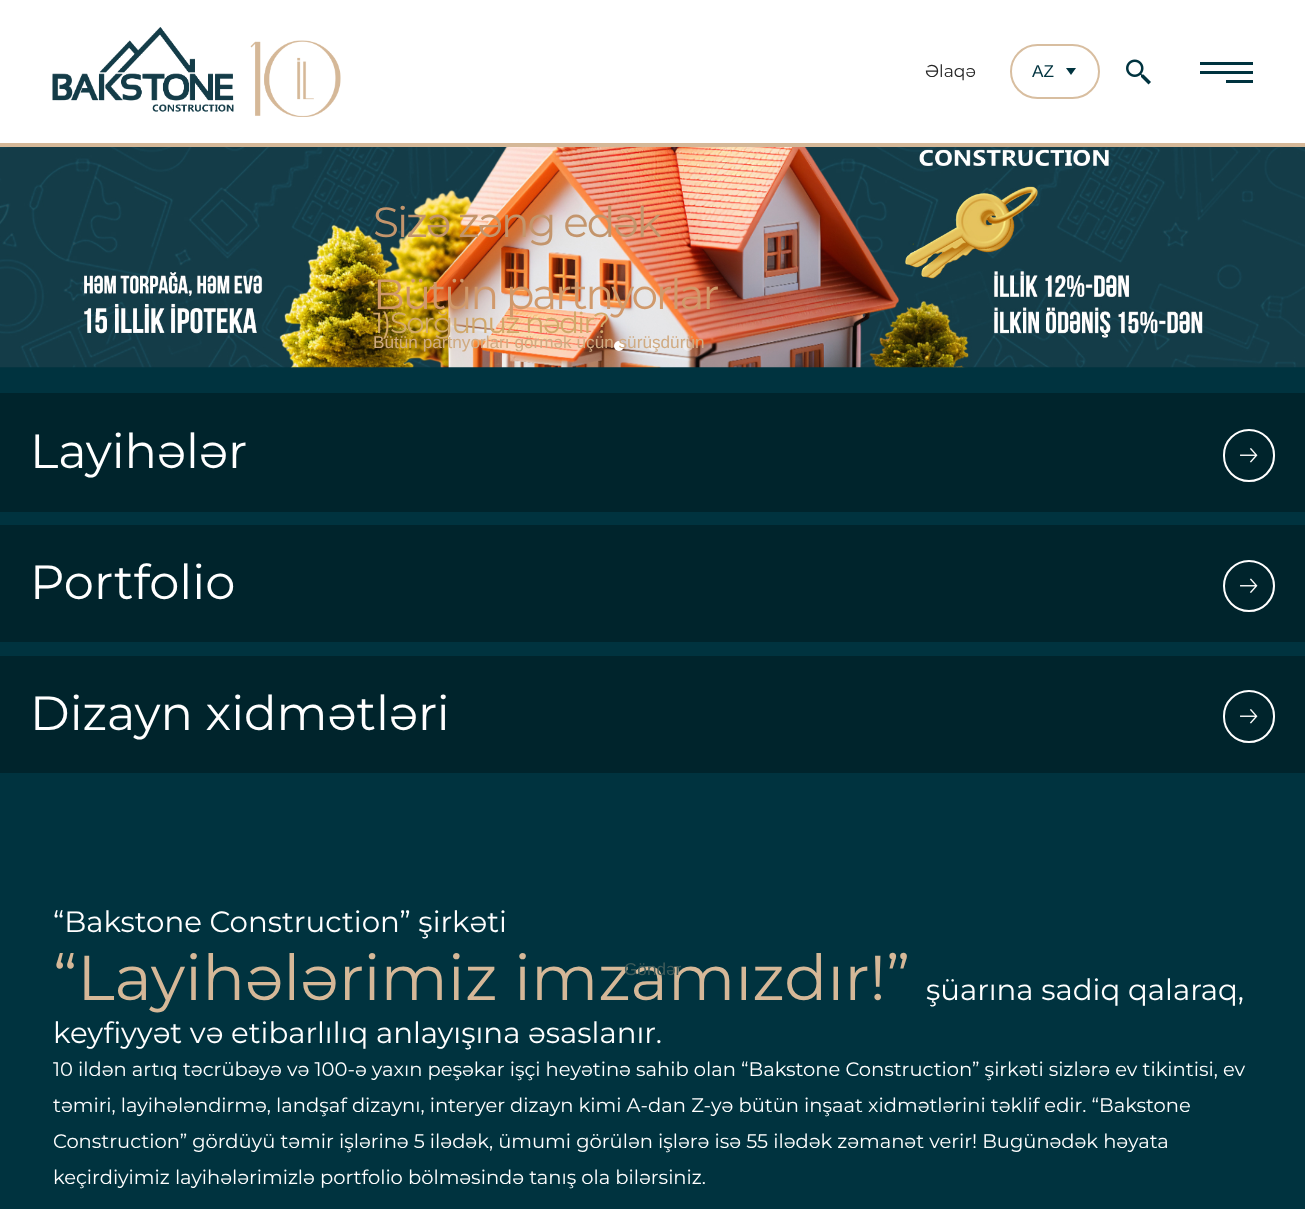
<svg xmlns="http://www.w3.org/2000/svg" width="1305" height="1209">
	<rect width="100%" height="100%" fill="#00333F" />
	<rect x="0" y="0" width="1305" height="143" fill="#FFFFFF" />
	<rect x="0" y="143" width="1305" height="4" fill="#D5B898" />
	<image x="52" y="27" width="289" height="90" href="assets/img1.png" />
	<text x="925" y="77" font-family="Montserrat" font-size="17.2" fill="#252525">Əlaqə</text>
	<rect x="1011" y="45" width="88" height="53" rx="26.5" fill="none" stroke="#D8BEA0" stroke-width="2" />
	<text x="1032" y="77" font-family="Liberation Sans" font-size="17.2" fill="#00333F">AZ</text>
	<path d="M1071 75L1066 68H1076Z" fill="#00333F" />
	<image x="1126" y="59" width="25" height="26" href="assets/img2.png" />
	<rect x="1200" y="62" width="53" height="3" fill="#00333F" />
	<rect x="1200" y="71" width="53" height="3" fill="#00333F" />
	<rect x="1226" y="80" width="27" height="3" fill="#00333F" />
	<image x="0" y="147" width="1305" height="221" href="assets/img3.png" />
	<text x="373" y="237" font-family="Montserrat" font-size="42.25" letter-spacing="-2.1" fill="#C3956C">Sizə zəng edək</text>
	<text x="373" y="333" font-family="Montserrat" font-size="29" letter-spacing="-1.5" fill="#D1A86A">1)Sorğunuz nədir?</text>
	<text x="53" y="1000" font-family="Montserrat" font-size="63.4" fill="#D5B898">“Layihələrimiz imzamızdır!”</text>
	<text x="624" y="975" font-family="Liberation Sans" font-size="17.2" fill="#3E5A59">Göndər</text>
	<text x="373" y="309" font-family="Montserrat" font-size="42.25" letter-spacing="-2.1" fill="#D0996B">Bütün partnyorlar</text>
	<circle cx="619" cy="346" r="5" fill="#FFFFFF" />
	<rect x="648" y="341" width="11" height="10" rx="5" fill="#FFFFFF" fill-opacity="0.4" />
	<circle cx="688" cy="346" r="5" fill="#FFFFFF" fill-opacity="0.4" />
	<text x="373" y="348" font-family="Liberation Sans" font-size="17.2" fill="#D0AB82">Bütün partnyorları görmək üçün sürüşdürün</text>
	<rect x="0" y="393" width="1305" height="119" fill="#00242C" />
	<text x="30" y="468" font-family="Montserrat" font-size="48" fill="#FFFFFF">Layihələr</text>
	<rect x="1224" y="430" width="50" height="51" rx="25" fill="none" stroke="#FFFFFF" stroke-width="2" />
	<image x="1240" y="448" width="18" height="15" href="assets/img4.png" />
	<rect x="0" y="525" width="1305" height="117" fill="#00242C" />
	<text x="30" y="599" font-family="Montserrat" font-size="48" fill="#FFFFFF">Portfolio</text>
	<circle cx="1249" cy="586" r="25" fill="none" stroke="#FFFFFF" stroke-width="2" />
	<image x="1240" y="578" width="18" height="15" href="assets/img5.png" />
	<rect x="0" y="656" width="1305" height="117" fill="#00242C" />
	<text x="30" y="730" font-family="Montserrat" font-size="48" fill="#FFFFFF">Dizayn xidmətləri</text>
	<rect x="1224" y="691" width="50" height="51" rx="25" fill="none" stroke="#FFFFFF" stroke-width="2" />
	<image x="1240" y="709" width="18" height="15" href="assets/img4.png" />
	<g font-family="Montserrat" font-size="29.25" fill="#FFFFFF">
		<text x="53" y="932">“Bakstone Construction” şirkəti</text>
		<text x="926" y="1000">şüarına sadiq qalaraq,</text>
		<text x="53" y="1043">keyfiyyət və etibarlılıq anlayışına əsaslanır.</text>
	</g>
	<g font-family="Montserrat" font-size="19.5" fill="#FFFFFF">
		<text x="53" y="1076">10 ildən artıq təcrübəyə və 100-ə yaxın peşəkar işçi heyətinə sahib olan “Bakstone Construction” şirkəti sizlərə ev tikintisi, ev</text>
		<text x="53" y="1112">təmiri, layihələndirmə, landşaf dizaynı, interyer dizayn kimi A-dan Z-yə bütün inşaat xidmətlərini təklif edir. “Bakstone</text>
		<text x="53" y="1148">Construction” gördüyü təmir işlərinə 5 ilədək, ümumi görülən işlərə isə 55 ilədək zəmanət verir! Bugünədək həyata</text>
		<text x="53" y="1184">keçirdiyimiz layihələrimizlə portfolio bölməsində tanış ola bilərsiniz.</text>
	</g>
</svg>
